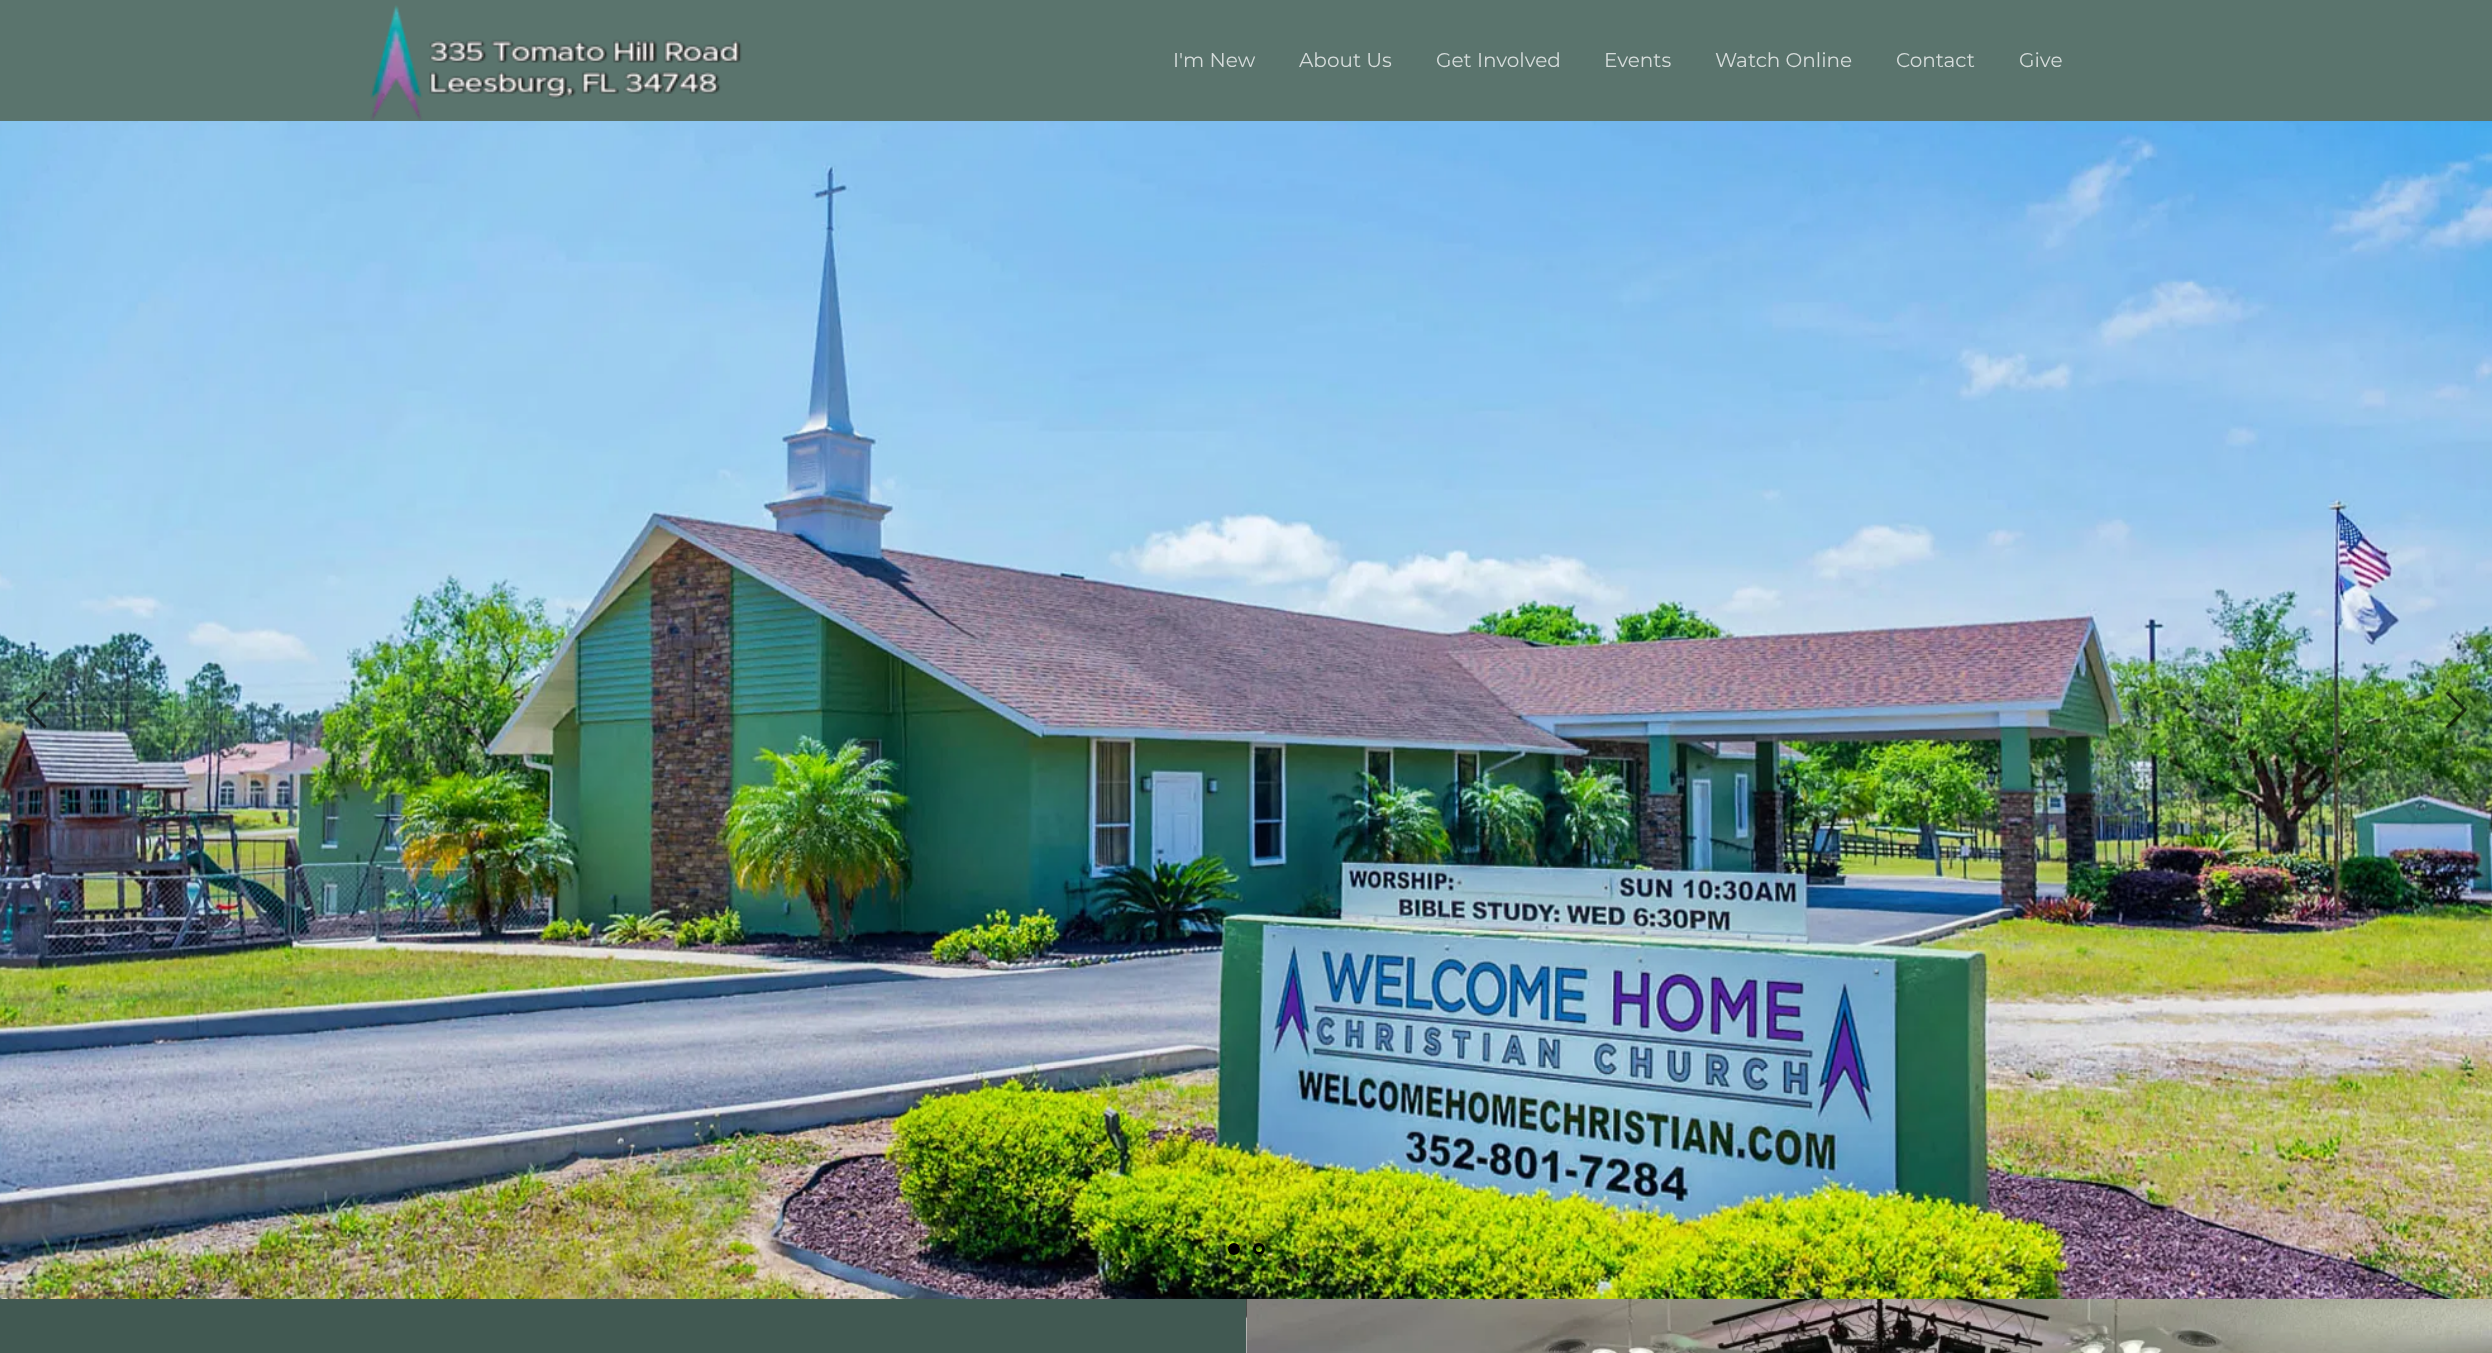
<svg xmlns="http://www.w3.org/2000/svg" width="2492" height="1353">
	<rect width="100%" height="100%" fill="#FFFFFF" />
	<rect x="0" y="0" width="2492" height="121" fill="#5A746D" />
	<image x="370" y="5" width="372" height="116" href="assets/img1.png" />
	<g font-family="Montserrat" font-size="20" font-weight="100" fill="#D6DCDB">
		<text x="1173" y="67">I'm New</text>
		<text x="1299" y="67">About Us</text>
		<text x="1436" y="67">Get Involved</text>
		<text x="1604" y="67">Events</text>
		<text x="1715" y="67">Watch Online</text>
		<text x="1896" y="67">Contact</text>
		<text x="2019" y="67">Give</text>
	</g>
	<image x="0" y="121" width="2492" height="1197" href="assets/img2.png" />
	<image x="25" y="691" width="22" height="38" href="assets/img3.png" />
	<image x="2445" y="691" width="23" height="38" href="assets/img4.png" />
	<circle cx="1234" cy="1249" r="4.5" fill="#000000" stroke="#000000" stroke-width="3" />
	<circle cx="1259" cy="1249" r="4.5" fill="none" stroke="#000000" stroke-width="3" />
	<rect x="0" y="1299" width="1246" height="54" fill="#415952" />
	<image x="1246" y="1298" width="1246" height="55" href="assets/img5.png" />
</svg>
